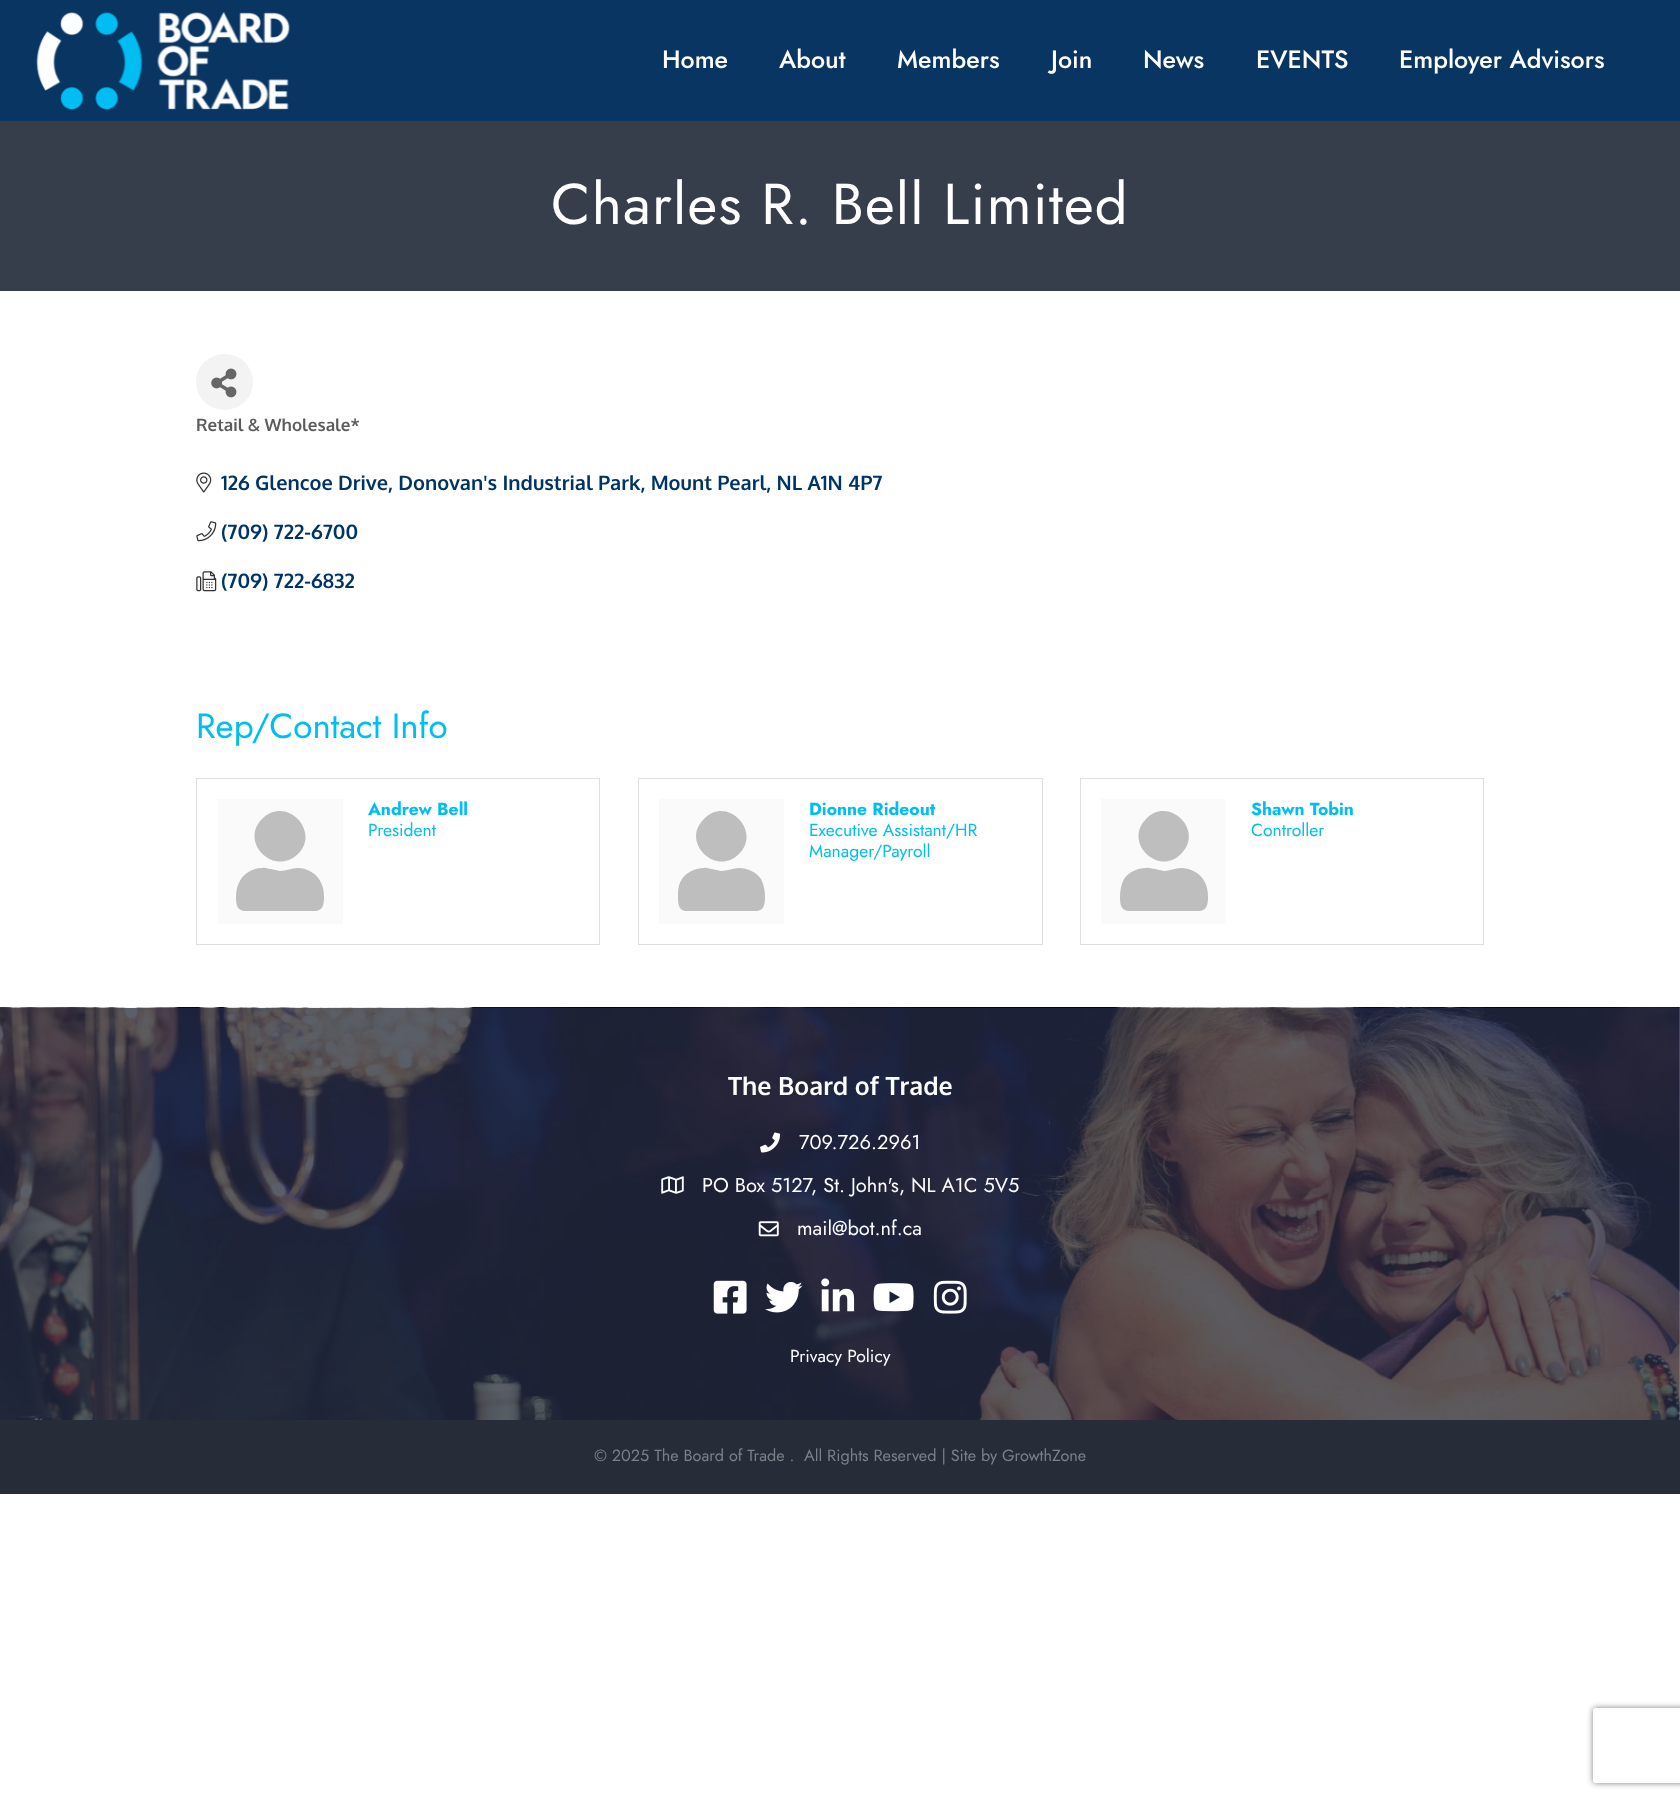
<svg xmlns="http://www.w3.org/2000/svg" width="1680" height="1799">
	<defs>
		<clipPath id="clip1"><path d="M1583 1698H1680V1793H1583ZM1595.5 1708H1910.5C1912 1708 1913 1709 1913 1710.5V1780.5C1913 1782 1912 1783 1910.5 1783H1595.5C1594 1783 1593 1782 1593 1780.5V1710.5C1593 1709 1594 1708 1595.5 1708Z" clip-rule="evenodd" /></clipPath>
	</defs>
	<rect width="100%" height="100%" fill="#FFFFFF" />
	<rect x="0" y="0" width="1680" height="121" fill="#093562" />
	<image x="36" y="12" width="254" height="98" href="assets/img1.png" />
	<g font-family="Jost" font-size="25" font-weight="500" fill="#FFFFFF">
		<text x="662" y="68">Home</text>
		<text x="779" y="68">About</text>
		<text x="897" y="68">Members</text>
		<text x="1051" y="68">Join</text>
		<text x="1143" y="68">News</text>
		<text x="1256" y="68">EVENTS</text>
		<text x="1399" y="68">Employer Advisors</text>
	</g>
	<rect x="0" y="121" width="1680" height="170" fill="#363D4B" />
	<text x="551" y="224" font-family="Jost" font-size="57.5" letter-spacing="1.25" fill="#FFFFFF">Charles R. Bell Limited</text>
	<rect x="196" y="354" width="57" height="56" rx="28" fill="#F3F3F3" />
	<image x="211" y="368" width="26" height="30" href="assets/img2.png" />
	<text x="196" y="431" font-family="Oxygen" font-size="17" font-weight="700" fill="#5C5C5C">Retail &amp; Wholesale*</text>
	<image x="196" y="472" width="16" height="21" href="assets/img3.png" />
	<text x="221" y="490" font-family="Oxygen" font-size="20" font-weight="700" fill="#003466">126 Glencoe Drive, Donovan's Industrial Park, Mount Pearl, NL A1N 4P7</text>
	<image x="196" y="521" width="21" height="21" href="assets/img4.png" />
	<text x="221" y="539" font-family="Oxygen" font-size="20" font-weight="700" fill="#003466">(709) 722-6700</text>
	<image x="196" y="571" width="21" height="21" href="assets/img5.png" />
	<text x="221" y="588" font-family="Oxygen" font-size="20" font-weight="700" fill="#003466">(709) 722-6832</text>
	<text x="196" y="738" font-family="Jost" font-size="35" fill="#00BEF2">Rep/Contact Info</text>
	<rect x="196.5" y="778.5" width="403" height="166" fill="none" stroke="#DFDFDF" />
	<rect x="218" y="799" width="125" height="125" fill="#FAFAFA" />
	<path d="M298 854C274 877 239 842 262 819C286 795 321 831 298 854ZM298 868C306 868 314 872 319 879C323 885 324 891 324 897C324 913 318 911 303 911H257C242 911 236 913 236 897C236 891 237 885 241 879C246 872 254 868 262 868C266 867 268 869 271 869L280 871C286 871 292 868 298 868Z" fill="#BEBEBE" />
	<text x="368" y="815" font-family="Jost" font-size="17.5" font-weight="700" fill="#00BEF2">Andrew Bell</text>
	<text x="368" y="836" font-family="Jost" font-size="17.5" fill="#00BEF2">President</text>
	<rect x="638.5" y="778.5" width="404" height="166" fill="none" stroke="#DFDFDF" />
	<rect x="659" y="799" width="125" height="125" fill="#FAFAFA" />
	<path d="M739 854C716 877 680 842 704 819C727 795 762 831 739 854ZM739 868C748 868 756 872 761 879C764 885 765 891 765 897C765 913 759 911 744 911H698C683 911 678 913 678 897C678 891 678 885 682 879C687 872 695 868 704 868C707 867 709 869 712 869L721 871C728 871 733 868 739 868Z" fill="#BEBEBE" />
	<text x="809" y="815" font-family="Jost" font-size="17.5" font-weight="700" fill="#00BEF2">Dionne Rideout</text>
	<g font-family="Jost" font-size="17.5" fill="#00BEF2">
		<text x="809" y="836">Executive Assistant/HR</text>
		<text x="809" y="857">Manager/Payroll</text>
	</g>
	<rect x="1080.5" y="778.5" width="403" height="166" fill="none" stroke="#DFDFDF" />
	<rect x="1101" y="799" width="125" height="125" fill="#FAFAFA" />
	<path d="M1181 854C1158 877 1123 842 1146 819C1169 795 1205 831 1181 854ZM1181 868C1190 868 1198 872 1203 879C1207 885 1208 891 1208 897C1208 913 1202 911 1187 911H1141C1126 911 1120 913 1120 897C1120 891 1121 885 1124 879C1129 872 1137 868 1146 868C1149 867 1152 869 1155 869L1164 871C1170 871 1175 868 1181 868Z" fill="#BEBEBE" />
	<text x="1251" y="815" font-family="Jost" font-size="17.5" font-weight="700" fill="#00BEF2">Shawn Tobin</text>
	<text x="1251" y="836" font-family="Jost" font-size="17.5" fill="#00BEF2">Controller</text>
	<image x="0" y="1007" width="1680" height="413" href="assets/img6.png" />
	<text x="728" y="1095" font-family="Oxygen" font-size="25" font-weight="700" fill="#FFFFFF">The Board of Trade</text>
	<image x="760" y="1132" width="20" height="21" href="assets/img7.png" />
	<text x="799" y="1149" font-family="Jost" font-size="20" fill="#FFFFFF">709.726.2961</text>
	<image x="661" y="1176" width="23" height="18" href="assets/img8.png" />
	<text x="702" y="1192" font-family="Jost" font-size="20" fill="#FFFFFF">PO Box 5127, St. John's, NL A1C 5V5</text>
	<image x="758" y="1221" width="21" height="16" href="assets/img9.png" />
	<text x="797" y="1235" font-family="Jost" font-size="20" fill="#FFFFFF">mail@bot.nf.ca</text>
	<image x="713" y="1280" width="34" height="34" href="assets/img10.png" />
	<image x="765" y="1282" width="38" height="31" href="assets/img11.png" />
	<image x="821" y="1278" width="34" height="34" href="assets/img12.png" />
	<image x="873" y="1283" width="41" height="29" href="assets/img13.png" />
	<image x="933" y="1280" width="34" height="34" href="assets/img14.png" />
	<text x="790" y="1362" font-family="Jost" font-size="17.5" fill="#FFFFFF">Privacy Policy</text>
	<rect x="0" y="1420" width="1680" height="74" fill="#262C38" />
	<g font-family="Jost" font-size="16.25" fill="#7D8088">
		<text x="594" y="1461">© 2025 The Board of Trade .</text>
		<text x="804" y="1461">All Rights Reserved | Site by GrowthZone</text>
	</g>
	<g clip-path="url(#clip1)">
		<rect x="1593" y="1708" width="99" height="75" rx="2.5" fill="#808080" filter="blur(3px)" />
	</g>
</svg>
